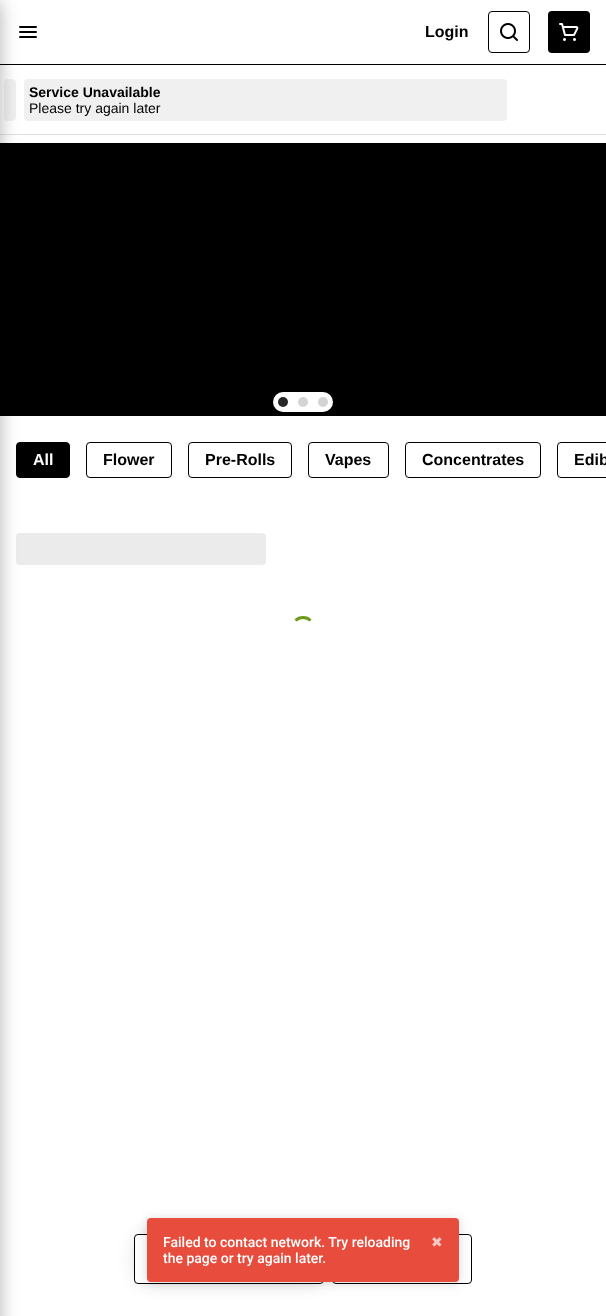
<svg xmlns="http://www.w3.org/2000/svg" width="606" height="1316">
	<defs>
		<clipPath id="clip1"><path d="M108 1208H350V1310H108ZM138 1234H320C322 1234 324 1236 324 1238V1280C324 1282 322 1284 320 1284H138C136 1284 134 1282 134 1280V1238C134 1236 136 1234 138 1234Z" clip-rule="evenodd" /></clipPath>
	</defs>
	<rect width="100%" height="100%" fill="#FFFFFF" />
	<rect x="0" y="64" width="606" height="1" fill="#000000" />
	<rect x="19" y="31" width="18" height="2" rx="1" fill="#000000" />
	<rect x="19" y="36" width="18" height="2" rx="1" fill="#000000" />
	<rect x="19" y="26" width="18" height="2" rx="1" fill="#000000" />
	<rect x="0" y="134" width="606" height="1" fill="#E1E1E1" />
	<rect x="4.5" y="79.5" width="11" height="41" rx="3.5" fill="#F0F0F0" stroke="#F0F0F0" />
	<rect x="24" y="79" width="483" height="42" rx="4" fill="#F0F0F0" />
	<rect x="0" y="143" width="606" height="273" fill="#000000" />
	<rect x="16.5" y="442.5" width="53" height="35" rx="3.5" fill="#000000" stroke="#000000" />
	<rect x="16" y="533" width="250" height="32" rx="4" fill="#EBEBEB" />
	<rect x="-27" y="2" width="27" height="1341" fill="#000000" fill-opacity="0.3" filter="blur(9px)" />
	<text x="425" y="37" font-family="Liberation Sans" font-size="16" font-weight="700" fill="#000000">Login</text>
	<rect x="488.5" y="11.5" width="41" height="41" rx="3.5" fill="none" stroke="#000000" />
	<image x="500" y="23" width="18" height="18" href="assets/img1.png" />
	<rect x="548" y="11" width="42" height="42" rx="4" fill="#000000" />
	<image x="559" y="23" width="20" height="18" href="assets/img2.png" />
	<text x="29" y="97" font-family="Liberation Sans" font-size="14" font-weight="700" fill="#000000">Service Unavailable</text>
	<text x="29" y="113" font-family="Liberation Sans" font-size="14" fill="#000000">Please try again later</text>
	<rect x="273" y="392" width="60" height="20" rx="10" fill="#FFFFFF" />
	<circle cx="283" cy="402" r="5" fill="#272727" />
	<circle cx="303" cy="402" r="5" fill="#D4D4D4" />
	<circle cx="323" cy="402" r="5" fill="#D4D4D4" />
	<text x="33" y="465" font-family="Liberation Sans" font-size="16" font-weight="700" fill="#FFFFFF">All</text>
	<rect x="86.5" y="442.5" width="85" height="35" rx="3.5" fill="none" stroke="#000000" />
	<text x="103" y="465" font-family="Liberation Sans" font-size="16" font-weight="700" fill="#000000">Flower</text>
	<rect x="188.5" y="442.5" width="103" height="35" rx="3.5" fill="none" stroke="#000000" />
	<text x="205" y="465" font-family="Liberation Sans" font-size="16" font-weight="700" fill="#000000">Pre-Rolls</text>
	<rect x="308.5" y="442.5" width="80" height="35" rx="3.5" fill="none" stroke="#000000" />
	<text x="325" y="465" font-family="Liberation Sans" font-size="16" font-weight="700" fill="#000000">Vapes</text>
	<rect x="405.5" y="442.5" width="135" height="35" rx="3.5" fill="none" stroke="#000000" />
	<text x="422" y="465" font-family="Liberation Sans" font-size="16" font-weight="700" fill="#000000">Concentrates</text>
	<rect x="557.5" y="442.5" width="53" height="35" rx="3.5" fill="none" stroke="#000000" />
	<text x="574" y="465" font-family="Liberation Sans" font-size="16" font-weight="700" fill="#000000">Edib</text>
	<path d="M295.5 620.5C299.5 616.5 306.5 616.5 310.5 620.5M295.5 620.5C299.5 616.5 306.5 616.5 310.5 620.5M295.5 620.5C299.5 616.5 306.5 616.5 310.5 620.5M295.5 620.5C299.5 616.5 306.5 616.5 310.5 620.5" fill="none" stroke="#6E991B" stroke-width="3" />
	<rect x="332.5" y="1234.5" width="139" height="49" rx="3.5" fill="none" stroke="#000000" />
	<g clip-path="url(#clip1)">
		<rect x="139" y="1239" width="180" height="40" fill="#000000" fill-opacity="0.2" filter="blur(10px)" />
	</g>
	<rect x="134.5" y="1234.5" width="189" height="49" rx="3.5" fill="none" stroke="#000000" />
	<rect x="147" y="1220" width="312" height="64" rx="4" fill="#000000" fill-opacity="0.05" filter="blur(7.5px)" />
	<rect x="147" y="1219" width="312" height="64" rx="4" fill="#000000" fill-opacity="0.1" filter="blur(5px)" />
	<rect x="147" y="1218" width="312" height="64" rx="4" fill="#E74C3C" />
	<g font-family="Roboto" font-size="14" font-weight="500" fill="#FFFFFF">
		<text x="163" y="1247">Failed to contact network. Try reloading</text>
		<text x="163" y="1263">the page or try again later.</text>
	</g>
	<text x="431" y="1247" font-family="DejaVu Sans" font-size="14" fill="#F8C9C5">✖︎</text>
</svg>
